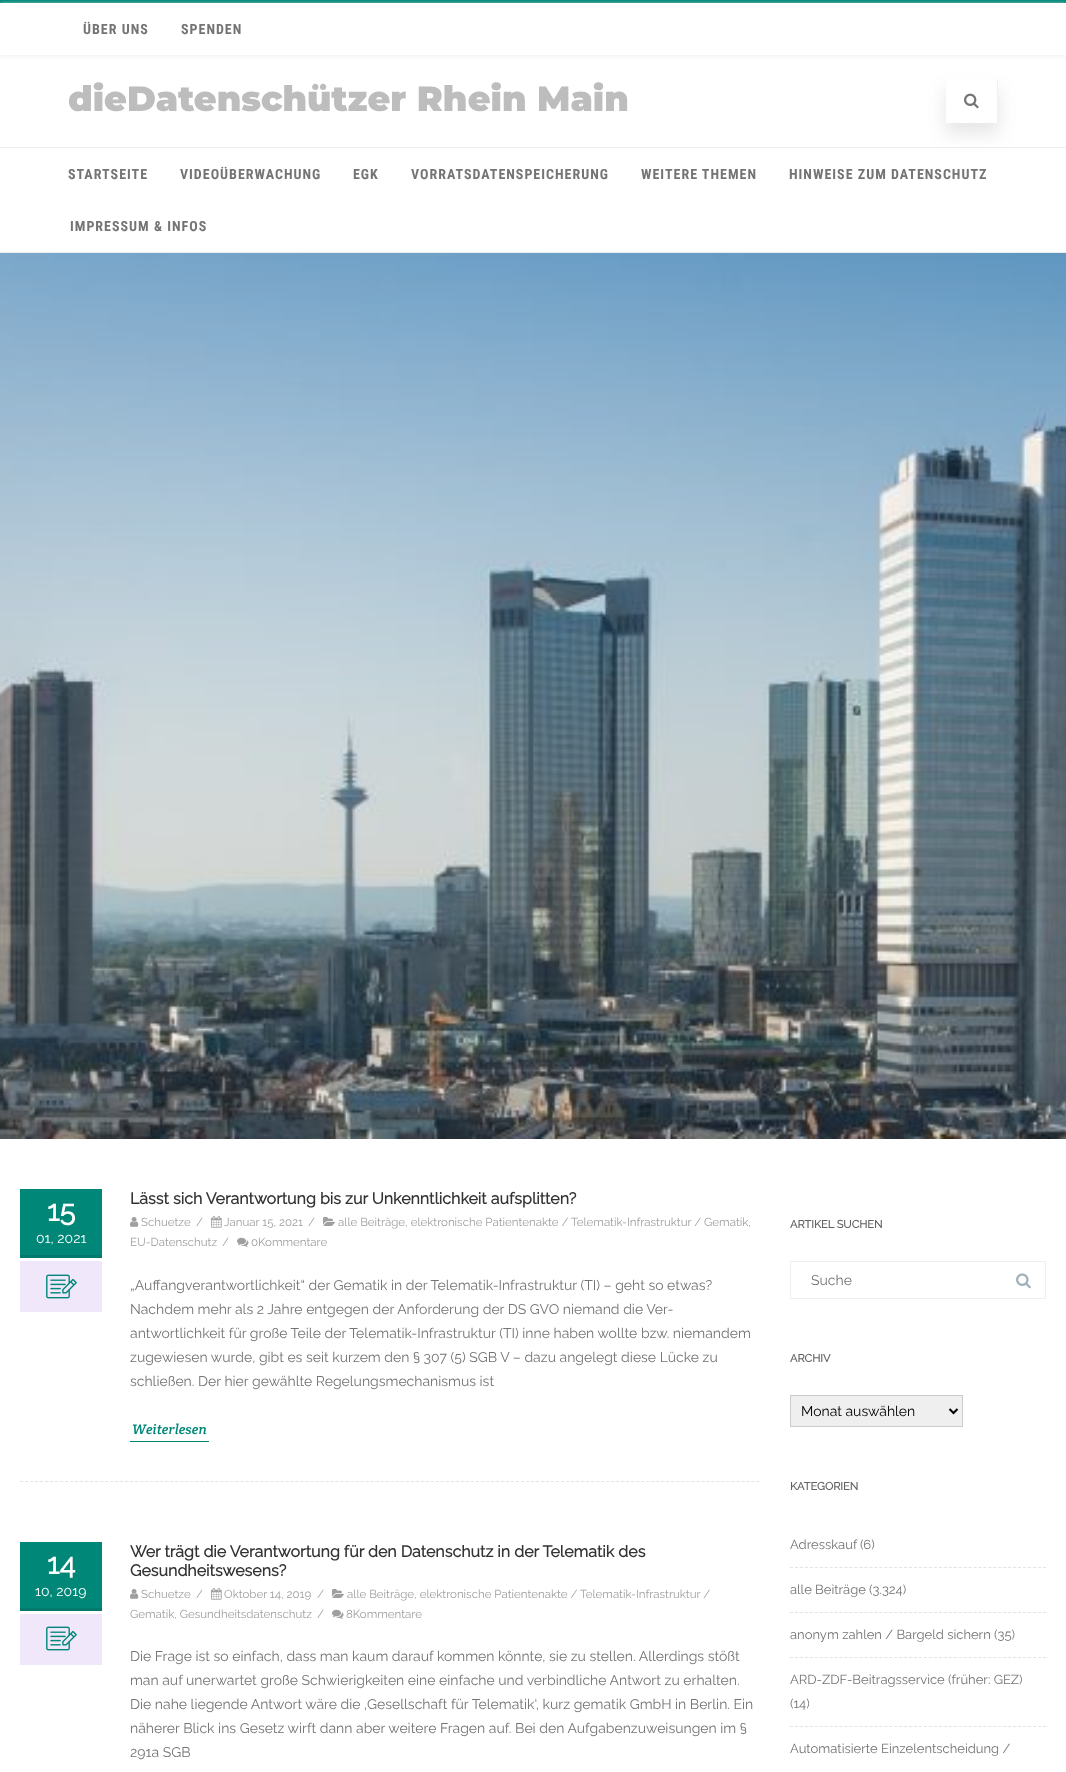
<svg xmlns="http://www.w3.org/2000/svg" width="1066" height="1772">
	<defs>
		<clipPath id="clip1"><path d="M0 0H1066V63H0ZM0 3H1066V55H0Z" clip-rule="evenodd" /></clipPath>
		<clipPath id="clip2"><path d="M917 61H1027V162H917ZM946 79H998V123H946Z" clip-rule="evenodd" /></clipPath>
	</defs>
	<rect width="100%" height="100%" fill="#FFFFFF" />
	<rect x="0" y="0" width="1066" height="3" fill="#008778" />
	<g clip-path="url(#clip1)">
		<rect x="0" y="4" width="1066" height="52" fill="#EEEEEE" filter="blur(2px)" />
	</g>
	<g font-family="Roboto Condensed" font-size="14" font-weight="700" letter-spacing="1" fill="#747474">
		<text x="83" y="34">ÜBER UNS</text>
		<text x="181" y="34">SPENDEN</text>
	</g>
	<text x="68" y="111" font-family="Montserrat" font-size="35" font-weight="900" fill="#BDBDBD">dieDatenschützer Rhein Main</text>
	<rect x="0" y="147" width="1066" height="1" fill="#EEEEEE" />
	<g clip-path="url(#clip2)">
		<rect x="945" y="89" width="54" height="45" fill="#404040" fill-opacity="0.13" filter="blur(9px)" />
	</g>
	<rect x="997" y="79" width="1" height="44" fill="#F1F1F1" />
	<image x="964" y="93" width="15" height="16" href="assets/img1.png" />
	<rect x="0" y="252" width="1066" height="1" fill="#EEEEEE" />
	<g font-family="Roboto Condensed" font-size="14" font-weight="700" letter-spacing="1" fill="#747474">
		<text x="68" y="179">STARTSEITE</text>
		<text x="180" y="179">VIDEOÜBERWACHUNG</text>
		<text x="353" y="179">EGK</text>
		<text x="411" y="179">VORRATSDATENSPEICHERUNG</text>
		<text x="641" y="179">WEITERE THEMEN</text>
		<text x="789" y="179">HINWEISE ZUM DATENSCHUTZ</text>
		<text x="70" y="231">IMPRESSUM &amp; INFOS</text>
	</g>
	<image x="0" y="253" width="1066" height="886" href="assets/img2.png" />
	<path d="M20 1481.5H760" fill="none" stroke="#E3E3E3" stroke-dasharray="3 2.01" />
	<rect x="20" y="1189" width="82" height="66" fill="#008778" />
	<rect x="20" y="1255" width="82" height="3" fill="#007A6C" />
	<text x="47" y="1221" font-family="Raleway" font-size="29" font-weight="700" fill="#FFFFFF">15</text>
	<text x="36" y="1243" font-family="Raleway" font-size="14" fill="#FFFFFF">01, 2021</text>
	<rect x="20" y="1261" width="82" height="51" fill="#F0E7FA" />
	<image x="46" y="1274" width="31" height="25" href="assets/img3.png" />
	<text x="130" y="1204" font-family="Raleway" font-size="16" font-weight="700" fill="#333333">Lässt sich Verantwortung bis zur Unkenntlichkeit aufsplitten?</text>
	<image x="130" y="1217" width="9" height="10" href="assets/img4.png" />
	<g font-family="Raleway" font-size="11.5" fill="#9F9F9F">
		<text x="141" y="1226">Schuetze</text>
		<text x="196" y="1226">/</text>
	</g>
	<image x="211" y="1216" width="11" height="12" href="assets/img5.png" />
	<g font-family="Raleway" font-size="11.5" fill="#9F9F9F">
		<text x="224" y="1226">Januar 15, 2021</text>
		<text x="308" y="1226">/</text>
	</g>
	<image x="323" y="1216" width="12" height="10" href="assets/img6.png" />
	<g font-family="Raleway" font-size="11.5" fill="#9F9F9F">
		<text x="338" y="1226">alle Beiträge, elektronische Patientenakte / Telematik-Infrastruktur / Gematik,</text>
		<text x="130" y="1246">EU-Datenschutz</text>
		<text x="222" y="1246">/</text>
	</g>
	<image x="237" y="1237" width="12" height="10" href="assets/img7.png" />
	<text x="251" y="1246" font-family="Raleway" font-size="11.5" fill="#9F9F9F">0Kommentare</text>
	<g font-family="Raleway" font-size="14" fill="#747474">
		<text x="130" y="1290">„Auffangverantwortlichkeit“ der Gematik in der Telematik-Infrastruktur (TI) – geht so etwas?</text>
		<text x="130" y="1314">Nachdem mehr als 2 Jahre entgegen der Anforderung der DS GVO niemand die Ver-</text>
		<text x="130" y="1338">antwortlichkeit für große Teile der Telematik-Infrastruktur (TI) inne haben wollte bzw. niemandem</text>
		<text x="130" y="1362">zugewiesen wurde, gibt es seit kurzem den § 307 (5) SGB V – dazu angelegt diese Lücke zu</text>
		<text x="130" y="1386">schließen. Der hier gewählte Regelungsmechanismus ist</text>
	</g>
	<rect x="130" y="1441" width="79" height="1" fill="#008778" />
	<text x="132" y="1434" font-family="Crete Round" font-size="14" font-style="italic" fill="#008778">Weiterlesen</text>
	<rect x="20" y="1542" width="82" height="66" fill="#008778" />
	<rect x="20" y="1608" width="82" height="3" fill="#007A6C" />
	<text x="47" y="1574" font-family="Raleway" font-size="29" font-weight="700" fill="#FFFFFF">14</text>
	<text x="35" y="1596" font-family="Raleway" font-size="14" fill="#FFFFFF">10, 2019</text>
	<rect x="20" y="1614" width="82" height="51" fill="#F0E7FA" />
	<image x="46" y="1626" width="31" height="25" href="assets/img3.png" />
	<g font-family="Raleway" font-size="16" font-weight="700" fill="#333333">
		<text x="130" y="1557">Wer trägt die Verantwortung für den Datenschutz in der Telematik des</text>
		<text x="130" y="1576">Gesundheitswesens?</text>
	</g>
	<image x="130" y="1589" width="9" height="10" href="assets/img4.png" />
	<g font-family="Raleway" font-size="11.5" fill="#9F9F9F">
		<text x="141" y="1598">Schuetze</text>
		<text x="196" y="1598">/</text>
	</g>
	<image x="211" y="1588" width="11" height="12" href="assets/img5.png" />
	<g font-family="Raleway" font-size="11.5" fill="#9F9F9F">
		<text x="224" y="1598">Oktober 14, 2019</text>
		<text x="317" y="1598">/</text>
	</g>
	<image x="332" y="1588" width="12" height="10" href="assets/img6.png" />
	<g font-family="Raleway" font-size="11.5" fill="#9F9F9F">
		<text x="347" y="1598">alle Beiträge, elektronische Patientenakte / Telematik-Infrastruktur /</text>
		<text x="130" y="1618">Gematik, Gesundheitsdatenschutz</text>
		<text x="317" y="1618">/</text>
	</g>
	<image x="332" y="1609" width="12" height="10" href="assets/img7.png" />
	<text x="346" y="1618" font-family="Raleway" font-size="11.5" fill="#9F9F9F">8Kommentare</text>
	<g font-family="Raleway" font-size="14" fill="#747474">
		<text x="130" y="1661">Die Frage ist so einfach, dass man kaum darauf kommen könnte, sie zu stellen. Allerdings stößt</text>
		<text x="130" y="1685">man auf unerwartet große Schwierigkeiten eine einfache und verbindliche Antwort zu erhalten.</text>
		<text x="130" y="1709">Die nahe liegende Antwort wäre die ‚Gesellschaft für Telematik‘, kurz gematik GmbH in Berlin. Ein</text>
		<text x="130" y="1733">näherer Blick ins Gesetz wirft dann aber weitere Fragen auf. Bei den Aufgabenzuweisungen im §</text>
		<text x="130" y="1757">291a SGB</text>
	</g>
	<text x="790" y="1228" font-family="Raleway" font-size="11" font-weight="700" fill="#636363">ARTIKEL SUCHEN</text>
	<rect x="790.5" y="1261.5" width="255" height="37" fill="none" stroke="#ECEEF0" />
	<text x="811" y="1285" font-family="Raleway" font-size="14" fill="#747474">Suche</text>
	<image x="1016" y="1273" width="15" height="16" href="assets/img8.png" />
	<text x="790" y="1362" font-family="Raleway" font-size="11" font-weight="700" fill="#636363">ARCHIV</text>
	<rect x="790.5" y="1395.5" width="172" height="31" fill="#EFEFEF" stroke="#CCCCCC" />
	<path d="M949.5 1409L953.5 1413L957.5 1409" fill="none" stroke="#000000" stroke-width="2" />
	<text x="801" y="1416" font-family="Raleway" font-size="14" fill="#000000">Monat auswählen</text>
	<text x="790" y="1490" font-family="Raleway" font-size="11" font-weight="700" fill="#636363">KATEGORIEN</text>
	<path d="M790 1567.5H1046" fill="none" stroke="#E3E3E3" stroke-dasharray="3 1.96" />
	<g font-family="Raleway" font-size="13" fill="#747474">
		<text x="790" y="1549">Adresskauf</text>
		<text x="860" y="1549">(6)</text>
	</g>
	<path d="M790 1612.5H1046" fill="none" stroke="#E3E3E3" stroke-dasharray="3 1.96" />
	<g font-family="Raleway" font-size="13" fill="#747474">
		<text x="790" y="1594">alle Beiträge</text>
		<text x="869" y="1594">(3.324)</text>
	</g>
	<path d="M790 1657.5H1046" fill="none" stroke="#E3E3E3" stroke-dasharray="3 1.96" />
	<g font-family="Raleway" font-size="13" fill="#747474">
		<text x="790" y="1639">anonym zahlen / Bargeld sichern</text>
		<text x="994" y="1639">(35)</text>
	</g>
	<path d="M790 1726.5H1046" fill="none" stroke="#E3E3E3" stroke-dasharray="3 1.96" />
	<g font-family="Raleway" font-size="13" fill="#747474">
		<text x="790" y="1684">ARD-ZDF-Beitragsservice (früher: GEZ)</text>
		<text x="790" y="1708">(14)</text>
		<text x="790" y="1753">Automatisierte Einzelentscheidung /</text>
	</g>
</svg>
